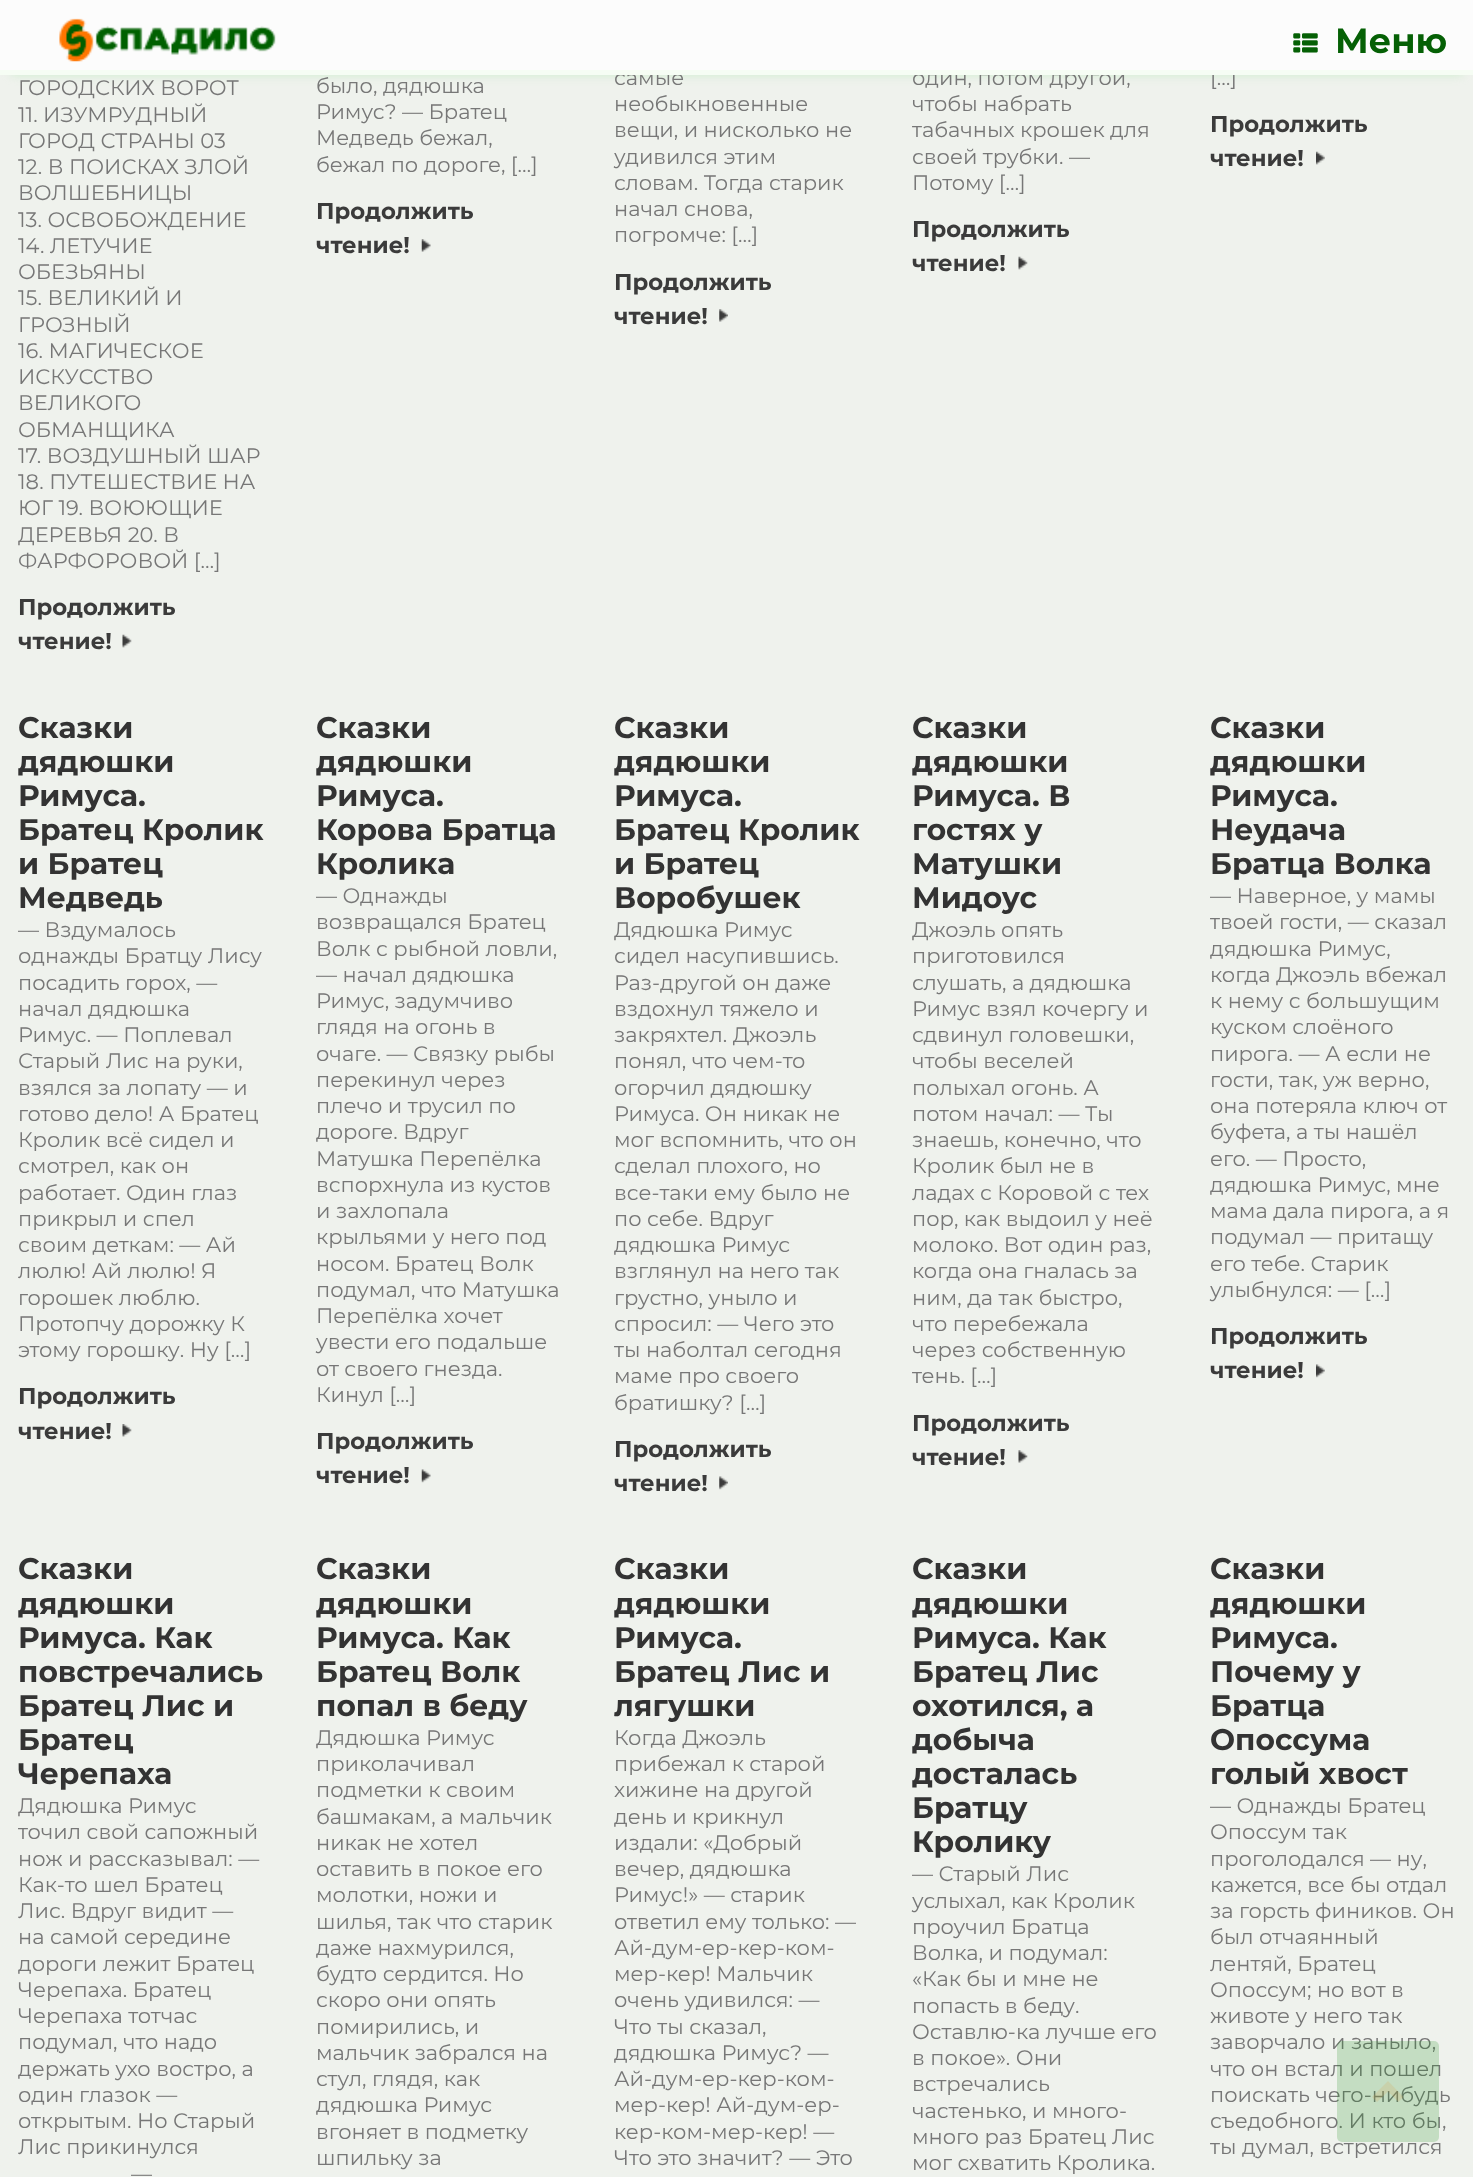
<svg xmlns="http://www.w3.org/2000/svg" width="1473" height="2177">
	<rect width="100%" height="100%" fill="#EFF2ED" />
	<rect x="11" y="21" width="1452" height="54" fill="#B1EAB1" fill-opacity="0.5" filter="blur(5px)" />
	<g font-family="Montserrat" font-size="21" fill="#777777">
		<text x="912" y="85">один, потом другой,</text>
		<text x="1210" y="85">[…]</text>
	</g>
	<rect x="0" y="0" width="1473" height="70" fill="#FCFCFC" />
	<text x="614" y="85" font-family="Montserrat" font-size="21" fill="#777777">самые</text>
	<rect x="0" y="70" width="1473" height="5" fill="#F6FDF4" />
	<image x="59" y="18" width="217" height="44" href="assets/img1.png" />
	<image x="1293" y="33" width="25" height="20" href="assets/img2.png" />
	<text x="1335" y="53" font-family="Montserrat" font-size="35" font-weight="700" fill="#056005">Меню</text>
	<g font-family="Montserrat" font-size="21" fill="#777777">
		<text x="18" y="95">ГОРОДСКИХ ВОРОТ</text>
		<text x="18" y="122">11. ИЗУМРУДНЫЙ</text>
		<text x="18" y="148">ГОРОД СТРАНЫ 03</text>
		<text x="18" y="174">12. В ПОИСКАХ ЗЛОЙ</text>
		<text x="18" y="200">ВОЛШЕБНИЦЫ</text>
		<text x="18" y="227">13. ОСВОБОЖДЕНИЕ</text>
		<text x="18" y="253">14. ЛЕТУЧИЕ</text>
		<text x="18" y="279">ОБЕЗЬЯНЫ</text>
		<text x="18" y="305">15. ВЕЛИКИЙ И</text>
		<text x="18" y="332">ГРОЗНЫЙ</text>
		<text x="18" y="358">16. МАГИЧЕСКОЕ</text>
		<text x="18" y="384">ИСКУССТВО</text>
		<text x="18" y="410">ВЕЛИКОГО</text>
		<text x="18" y="437">ОБМАНЩИКА</text>
		<text x="18" y="463">17. ВОЗДУШНЫЙ ШАР</text>
		<text x="18" y="489">18. ПУТЕШЕСТВИЕ НА</text>
		<text x="18" y="515">ЮГ 19. ВОЮЮЩИЕ</text>
		<text x="18" y="542">ДЕРЕВЬЯ 20. В</text>
		<text x="18" y="568">ФАРФОРОВОЙ […]</text>
	</g>
	<g font-family="Montserrat" font-size="22.75" font-weight="700" fill="#3B3B3B">
		<text x="18" y="615">Продолжить</text>
		<text x="18" y="649">чтение!</text>
	</g>
	<image x="122" y="634" width="10" height="14" href="assets/img3.png" />
	<g font-family="Montserrat" font-size="21" fill="#777777">
		<text x="316" y="93">было, дядюшка</text>
		<text x="316" y="119">Римус? — Братец</text>
		<text x="316" y="145">Медведь бежал,</text>
		<text x="316" y="172">бежал по дороге, […]</text>
	</g>
	<g font-family="Montserrat" font-size="22.75" font-weight="700" fill="#3B3B3B">
		<text x="316" y="219">Продолжить</text>
		<text x="316" y="253">чтение!</text>
	</g>
	<image x="421" y="239" width="10" height="13" href="assets/img4.png" />
	<g font-family="Montserrat" font-size="21" fill="#777777">
		<text x="614" y="111">необыкновенные</text>
		<text x="614" y="137">вещи, и нисколько не</text>
		<text x="614" y="164">удивился этим</text>
		<text x="614" y="190">словам. Тогда старик</text>
		<text x="614" y="216">начал снова,</text>
		<text x="614" y="242">погромче: […]</text>
	</g>
	<g font-family="Montserrat" font-size="22.75" font-weight="700" fill="#3B3B3B">
		<text x="614" y="290">Продолжить</text>
		<text x="614" y="324">чтение!</text>
	</g>
	<image x="719" y="309" width="9" height="13" href="assets/img5.png" />
	<g font-family="Montserrat" font-size="21" fill="#777777">
		<text x="912" y="111">чтобы набрать</text>
		<text x="912" y="137">табачных крошек для</text>
		<text x="912" y="164">своей трубки. —</text>
		<text x="912" y="190">Потому […]</text>
	</g>
	<g font-family="Montserrat" font-size="22.75" font-weight="700" fill="#3B3B3B">
		<text x="912" y="237">Продолжить</text>
		<text x="912" y="271">чтение!</text>
	</g>
	<image x="1018" y="256" width="10" height="14" href="assets/img3.png" />
	<g font-family="Montserrat" font-size="22.75" font-weight="700" fill="#3B3B3B">
		<text x="1210" y="132">Продолжить</text>
		<text x="1210" y="166">чтение!</text>
	</g>
	<image x="1316" y="151" width="9" height="14" href="assets/img6.png" />
	<g font-family="Montserrat" font-size="29.75" font-weight="700" fill="#333333">
		<text x="18" y="738">Сказки</text>
		<text x="18" y="772">дядюшки</text>
		<text x="18" y="806">Римуса.</text>
		<text x="18" y="840">Братец Кролик</text>
		<text x="18" y="874">и Братец</text>
		<text x="18" y="908">Медведь</text>
	</g>
	<g font-family="Montserrat" font-size="21" fill="#777777">
		<text x="18" y="937">— Вздумалось</text>
		<text x="18" y="963">однажды Братцу Лису</text>
		<text x="18" y="990">посадить горох, —</text>
		<text x="18" y="1016">начал дядюшка</text>
		<text x="18" y="1042">Римус. — Поплевал</text>
		<text x="18" y="1068">Старый Лис на руки,</text>
		<text x="18" y="1095">взялся за лопату — и</text>
		<text x="18" y="1121">готово дело! А Братец</text>
		<text x="18" y="1147">Кролик всё сидел и</text>
		<text x="18" y="1173">смотрел, как он</text>
		<text x="18" y="1200">работает. Один глаз</text>
		<text x="18" y="1226">прикрыл и спел</text>
		<text x="18" y="1252">своим деткам: — Ай</text>
		<text x="18" y="1278">люлю! Ай люлю! Я</text>
		<text x="18" y="1305">горошек люблю.</text>
		<text x="18" y="1331">Протопчу дорожку К</text>
		<text x="18" y="1357">этому горошку. Ну […]</text>
	</g>
	<g font-family="Montserrat" font-size="22.75" font-weight="700" fill="#3B3B3B">
		<text x="18" y="1404">Продолжить</text>
		<text x="18" y="1439">чтение!</text>
	</g>
	<image x="122" y="1424" width="10" height="13" href="assets/img7.png" />
	<g font-family="Montserrat" font-size="29.75" font-weight="700" fill="#333333">
		<text x="316" y="738">Сказки</text>
		<text x="316" y="772">дядюшки</text>
		<text x="316" y="806">Римуса.</text>
		<text x="316" y="840">Корова Братца</text>
		<text x="316" y="874">Кролика</text>
	</g>
	<g font-family="Montserrat" font-size="21" fill="#777777">
		<text x="316" y="903">— Однажды</text>
		<text x="316" y="929">возвращался Братец</text>
		<text x="316" y="956">Волк с рыбной ловли,</text>
		<text x="316" y="982">— начал дядюшка</text>
		<text x="316" y="1008">Римус, задумчиво</text>
		<text x="316" y="1034">глядя на огонь в</text>
		<text x="316" y="1061">очаге. — Связку рыбы</text>
		<text x="316" y="1087">перекинул через</text>
		<text x="316" y="1113">плечо и трусил по</text>
		<text x="316" y="1139">дороге. Вдруг</text>
		<text x="316" y="1166">Матушка Перепёлка</text>
		<text x="316" y="1192">вспорхнула из кустов</text>
		<text x="316" y="1218">и захлопала</text>
		<text x="316" y="1244">крыльями у него под</text>
		<text x="316" y="1271">носом. Братец Волк</text>
		<text x="316" y="1297">подумал, что Матушка</text>
		<text x="316" y="1323">Перепёлка хочет</text>
		<text x="316" y="1349">увести его подальше</text>
		<text x="316" y="1376">от своего гнезда.</text>
		<text x="316" y="1402">Кинул […]</text>
	</g>
	<g font-family="Montserrat" font-size="22.75" font-weight="700" fill="#3B3B3B">
		<text x="316" y="1449">Продолжить</text>
		<text x="316" y="1483">чтение!</text>
	</g>
	<image x="421" y="1469" width="10" height="14" href="assets/img8.png" />
	<g font-family="Montserrat" font-size="29.75" font-weight="700" fill="#333333">
		<text x="614" y="738">Сказки</text>
		<text x="614" y="772">дядюшки</text>
		<text x="614" y="806">Римуса.</text>
		<text x="614" y="840">Братец Кролик</text>
		<text x="614" y="874">и Братец</text>
		<text x="614" y="908">Воробушек</text>
	</g>
	<g font-family="Montserrat" font-size="21" fill="#777777">
		<text x="614" y="937">Дядюшка Римус</text>
		<text x="614" y="963">сидел насупившись.</text>
		<text x="614" y="990">Раз-другой он даже</text>
		<text x="614" y="1016">вздохнул тяжело и</text>
		<text x="614" y="1042">закряхтел. Джоэль</text>
		<text x="614" y="1068">понял, что чем-то</text>
		<text x="614" y="1095">огорчил дядюшку</text>
		<text x="614" y="1121">Римуса. Он никак не</text>
		<text x="614" y="1147">мог вспомнить, что он</text>
		<text x="614" y="1173">сделал плохого, но</text>
		<text x="614" y="1200">все-таки ему было не</text>
		<text x="614" y="1226">по себе. Вдруг</text>
		<text x="614" y="1252">дядюшка Римус</text>
		<text x="614" y="1278">взглянул на него так</text>
		<text x="614" y="1305">грустно, уныло и</text>
		<text x="614" y="1331">спросил: — Чего это</text>
		<text x="614" y="1357">ты наболтал сегодня</text>
		<text x="614" y="1383">маме про своего</text>
		<text x="614" y="1410">братишку? […]</text>
	</g>
	<g font-family="Montserrat" font-size="22.75" font-weight="700" fill="#3B3B3B">
		<text x="614" y="1457">Продолжить</text>
		<text x="614" y="1491">чтение!</text>
	</g>
	<image x="719" y="1476" width="9" height="14" href="assets/img9.png" />
	<g font-family="Montserrat" font-size="29.75" font-weight="700" fill="#333333">
		<text x="912" y="738">Сказки</text>
		<text x="912" y="772">дядюшки</text>
		<text x="912" y="806">Римуса. В</text>
		<text x="912" y="840">гостях у</text>
		<text x="912" y="874">Матушки</text>
		<text x="912" y="908">Мидоус</text>
	</g>
	<g font-family="Montserrat" font-size="21" fill="#777777">
		<text x="912" y="937">Джоэль опять</text>
		<text x="912" y="963">приготовился</text>
		<text x="912" y="990">слушать, а дядюшка</text>
		<text x="912" y="1016">Римус взял кочергу и</text>
		<text x="912" y="1042">сдвинул головешки,</text>
		<text x="912" y="1068">чтобы веселей</text>
		<text x="912" y="1095">полыхал огонь. А</text>
		<text x="912" y="1121">потом начал: — Ты</text>
		<text x="912" y="1147">знаешь, конечно, что</text>
		<text x="912" y="1173">Кролик был не в</text>
		<text x="912" y="1200">ладах с Коровой с тех</text>
		<text x="912" y="1226">пор, как выдоил у неё</text>
		<text x="912" y="1252">молоко. Вот один раз,</text>
		<text x="912" y="1278">когда она гналась за</text>
		<text x="912" y="1305">ним, да так быстро,</text>
		<text x="912" y="1331">что перебежала</text>
		<text x="912" y="1357">через собственную</text>
		<text x="912" y="1383">тень. […]</text>
	</g>
	<g font-family="Montserrat" font-size="22.75" font-weight="700" fill="#3B3B3B">
		<text x="912" y="1431">Продолжить</text>
		<text x="912" y="1465">чтение!</text>
	</g>
	<image x="1018" y="1450" width="10" height="13" href="assets/img10.png" />
	<g font-family="Montserrat" font-size="29.75" font-weight="700" fill="#333333">
		<text x="1210" y="738">Сказки</text>
		<text x="1210" y="772">дядюшки</text>
		<text x="1210" y="806">Римуса.</text>
		<text x="1210" y="840">Неудача</text>
		<text x="1210" y="874">Братца Волка</text>
	</g>
	<g font-family="Montserrat" font-size="21" fill="#777777">
		<text x="1210" y="903">— Наверное, у мамы</text>
		<text x="1210" y="929">твоей гости, — сказал</text>
		<text x="1210" y="956">дядюшка Римус,</text>
		<text x="1210" y="982">когда Джоэль вбежал</text>
		<text x="1210" y="1008">к нему с большущим</text>
		<text x="1210" y="1034">куском слоёного</text>
		<text x="1210" y="1061">пирога. — А если не</text>
		<text x="1210" y="1087">гости, так, уж верно,</text>
		<text x="1210" y="1113">она потеряла ключ от</text>
		<text x="1210" y="1139">буфета, а ты нашёл</text>
		<text x="1210" y="1166">его. — Просто,</text>
		<text x="1210" y="1192">дядюшка Римус, мне</text>
		<text x="1210" y="1218">мама дала пирога, а я</text>
		<text x="1210" y="1244">подумал — притащу</text>
		<text x="1210" y="1271">его тебе. Старик</text>
		<text x="1210" y="1297">улыбнулся: — […]</text>
	</g>
	<g font-family="Montserrat" font-size="22.75" font-weight="700" fill="#3B3B3B">
		<text x="1210" y="1344">Продолжить</text>
		<text x="1210" y="1378">чтение!</text>
	</g>
	<image x="1316" y="1364" width="9" height="14" href="assets/img11.png" />
	<g font-family="Montserrat" font-size="29.75" font-weight="700" fill="#333333">
		<text x="18" y="1579">Сказки</text>
		<text x="18" y="1614">дядюшки</text>
		<text x="18" y="1648">Римуса. Как</text>
		<text x="18" y="1682">повстречались</text>
		<text x="18" y="1716">Братец Лис и</text>
		<text x="18" y="1750">Братец</text>
		<text x="18" y="1784">Черепаха</text>
	</g>
	<g font-family="Montserrat" font-size="21" fill="#777777">
		<text x="18" y="1813">Дядюшка Римус</text>
		<text x="18" y="1839">точил свой сапожный</text>
		<text x="18" y="1866">нож и рассказывал: —</text>
		<text x="18" y="1892">Как-то шел Братец</text>
		<text x="18" y="1918">Лис. Вдруг видит —</text>
		<text x="18" y="1944">на самой середине</text>
		<text x="18" y="1971">дороги лежит Братец</text>
		<text x="18" y="1997">Черепаха. Братец</text>
		<text x="18" y="2023">Черепаха тотчас</text>
		<text x="18" y="2049">подумал, что надо</text>
		<text x="18" y="2076">держать ухо востро, а</text>
		<text x="18" y="2102">один глазок —</text>
		<text x="18" y="2128">открытым. Но Старый</text>
		<text x="18" y="2154">Лис прикинулся</text>
		<text x="131" y="2181">—</text>
	</g>
	<g font-family="Montserrat" font-size="29.75" font-weight="700" fill="#333333">
		<text x="316" y="1579">Сказки</text>
		<text x="316" y="1614">дядюшки</text>
		<text x="316" y="1648">Римуса. Как</text>
		<text x="316" y="1682">Братец Волк</text>
		<text x="316" y="1716">попал в беду</text>
	</g>
	<g font-family="Montserrat" font-size="21" fill="#777777">
		<text x="316" y="1745">Дядюшка Римус</text>
		<text x="316" y="1771">приколачивал</text>
		<text x="316" y="1797">подметки к своим</text>
		<text x="316" y="1824">башмакам, а мальчик</text>
		<text x="316" y="1850">никак не хотел</text>
		<text x="316" y="1876">оставить в покое его</text>
		<text x="316" y="1902">молотки, ножи и</text>
		<text x="316" y="1929">шилья, так что старик</text>
		<text x="316" y="1955">даже нахмурился,</text>
		<text x="316" y="1981">будто сердится. Но</text>
		<text x="316" y="2007">скоро они опять</text>
		<text x="316" y="2034">помирились, и</text>
		<text x="316" y="2060">мальчик забрался на</text>
		<text x="316" y="2086">стул, глядя, как</text>
		<text x="316" y="2112">дядюшка Римус</text>
		<text x="316" y="2139">вгоняет в подметку</text>
		<text x="316" y="2165">шпильку за</text>
	</g>
	<g font-family="Montserrat" font-size="29.75" font-weight="700" fill="#333333">
		<text x="614" y="1579">Сказки</text>
		<text x="614" y="1614">дядюшки</text>
		<text x="614" y="1648">Римуса.</text>
		<text x="614" y="1682">Братец Лис и</text>
		<text x="614" y="1716">лягушки</text>
	</g>
	<g font-family="Montserrat" font-size="21" fill="#777777">
		<text x="614" y="1745">Когда Джоэль</text>
		<text x="614" y="1771">прибежал к старой</text>
		<text x="614" y="1797">хижине на другой</text>
		<text x="614" y="1824">день и крикнул</text>
		<text x="614" y="1850">издали: «Добрый</text>
		<text x="614" y="1876">вечер, дядюшка</text>
		<text x="614" y="1902">Римус!» — старик</text>
		<text x="614" y="1929">ответил ему только: —</text>
		<text x="614" y="1955">Ай-дум-ер-кер-ком-</text>
		<text x="614" y="1981">мер-кер! Мальчик</text>
		<text x="614" y="2007">очень удивился: —</text>
		<text x="614" y="2034">Что ты сказал,</text>
		<text x="614" y="2060">дядюшка Римус? —</text>
		<text x="614" y="2086">Ай-дум-ер-кер-ком-</text>
		<text x="614" y="2112">мер-кер! Ай-дум-ер-</text>
		<text x="614" y="2139">кер-ком-мер-кер! —</text>
		<text x="614" y="2165">Что это значит? — Это</text>
	</g>
	<g font-family="Montserrat" font-size="29.75" font-weight="700" fill="#333333">
		<text x="912" y="1579">Сказки</text>
		<text x="912" y="1614">дядюшки</text>
		<text x="912" y="1648">Римуса. Как</text>
		<text x="912" y="1682">Братец Лис</text>
		<text x="912" y="1716">охотился, а</text>
		<text x="912" y="1750">добыча</text>
		<text x="912" y="1784">досталась</text>
		<text x="912" y="1818">Братцу</text>
		<text x="912" y="1852">Кролику</text>
	</g>
	<g font-family="Montserrat" font-size="21" fill="#777777">
		<text x="912" y="1881">— Старый Лис</text>
		<text x="912" y="1908">услыхал, как Кролик</text>
		<text x="912" y="1934">проучил Братца</text>
		<text x="912" y="1960">Волка, и подумал:</text>
		<text x="912" y="1986">«Как бы и мне не</text>
		<text x="912" y="2013">попасть в беду.</text>
		<text x="912" y="2039">Оставлю-ка лучше его</text>
		<text x="912" y="2065">в покое». Они</text>
		<text x="912" y="2091">встречались</text>
		<text x="912" y="2118">частенько, и много-</text>
		<text x="912" y="2144">много раз Братец Лис</text>
		<text x="912" y="2170">мог схватить Кролика.</text>
	</g>
	<g font-family="Montserrat" font-size="29.75" font-weight="700" fill="#333333">
		<text x="1210" y="1579">Сказки</text>
		<text x="1210" y="1614">дядюшки</text>
		<text x="1210" y="1648">Римуса.</text>
		<text x="1210" y="1682">Почему у</text>
		<text x="1210" y="1716">Братца</text>
		<text x="1210" y="1750">Опоссума</text>
		<text x="1210" y="1784">голый хвост</text>
	</g>
	<g font-family="Montserrat" font-size="21" fill="#777777">
		<text x="1210" y="1813">— Однажды Братец</text>
		<text x="1210" y="1839">Опоссум так</text>
		<text x="1210" y="1866">проголодался — ну,</text>
		<text x="1210" y="1892">кажется, все бы отдал</text>
		<text x="1210" y="1918">за горсть фиников. Он</text>
		<text x="1210" y="1944">был отчаянный</text>
		<text x="1210" y="1971">лентяй, Братец</text>
		<text x="1210" y="1997">Опоссум; но вот в</text>
		<text x="1210" y="2023">животе у него так</text>
		<text x="1210" y="2049">заворчало и заныло,</text>
		<text x="1210" y="2076">что он встал и пошел</text>
		<text x="1210" y="2102">поискать чего-нибудь</text>
		<text x="1210" y="2128">съедобного. И кто бы,</text>
		<text x="1210" y="2154">ты думал, встретился</text>
	</g>
	<rect x="1337" y="2041" width="102" height="101" rx="5" fill="#198E1B" fill-opacity="0.2" />
	<path d="M1403.5 2097L1388 2081L1372 2097L1377 2102L1388 2091.5L1398.5 2102Z" fill="#DDA54F" fill-opacity="0.2" />
</svg>
